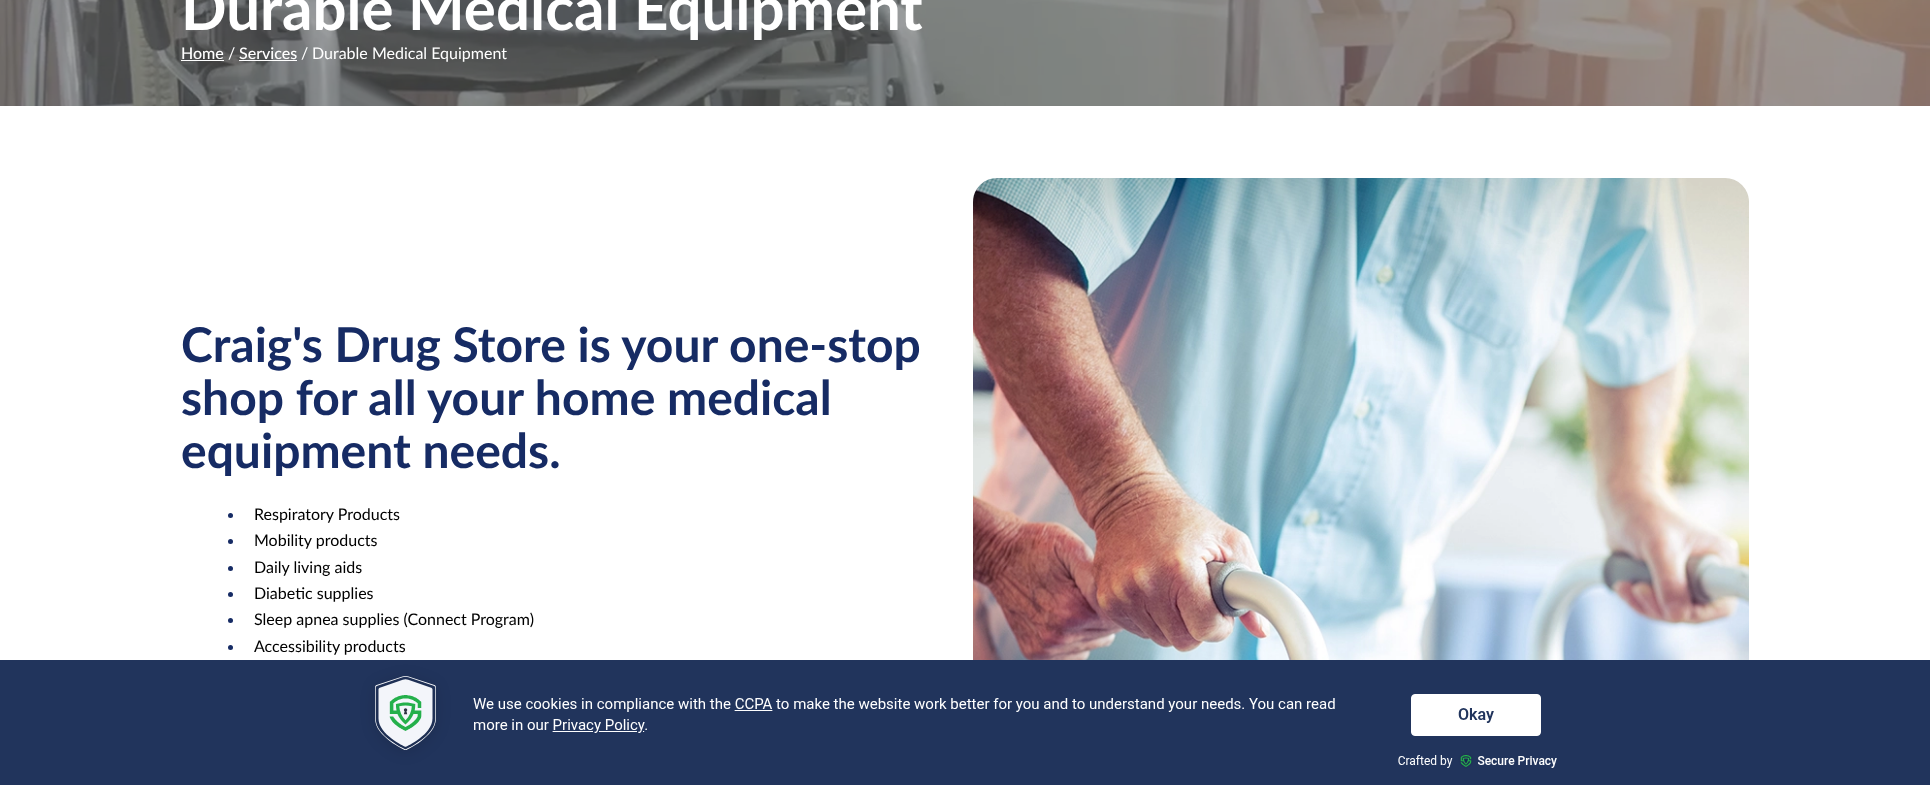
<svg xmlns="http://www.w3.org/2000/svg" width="1930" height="785">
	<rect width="100%" height="100%" fill="#FFFFFF" />
	<image x="0" y="0" width="1930" height="106" href="assets/img1.png" />
	<text x="181" y="30" font-family="Lato" font-size="60" font-weight="700" fill="#FFFFFF">Durable Medical Equipment</text>
	<text x="181" y="59" font-family="Lato" font-size="16" font-weight="500" fill="#FFFFFF">Home</text>
	<rect x="181" y="60" width="43" height="1" fill="#FFFFFF" />
	<text x="228" y="59" font-family="Lato" font-size="16" fill="#FFFFFF">/</text>
	<text x="239" y="59" font-family="Lato" font-size="16" font-weight="500" fill="#FFFFFF">Services</text>
	<rect x="239" y="60" width="58" height="1" fill="#FFFFFF" />
	<g font-family="Lato" font-size="16" fill="#FFFFFF">
		<text x="301" y="59">/</text>
		<text x="312" y="59">Durable Medical Equipment</text>
	</g>
	<g font-family="Lato" font-size="48" font-weight="700" fill="#162B64">
		<text x="181" y="362">Craig's Drug Store is your one-stop</text>
		<text x="181" y="415">shop for all your home medical</text>
		<text x="181" y="468">equipment needs.</text>
	</g>
	<circle cx="230.5" cy="515.5" r="2.5" fill="#162B64" />
	<text x="254" y="520" font-family="Lato" font-size="16" fill="#000000">Respiratory Products</text>
	<circle cx="230.5" cy="541.5" r="2.5" fill="#162B64" />
	<text x="254" y="546" font-family="Lato" font-size="16" fill="#000000">Mobility products</text>
	<circle cx="230.5" cy="568.5" r="2.5" fill="#162B64" />
	<text x="254" y="573" font-family="Lato" font-size="16" fill="#000000">Daily living aids</text>
	<circle cx="230.5" cy="594.5" r="2.5" fill="#162B64" />
	<text x="254" y="599" font-family="Lato" font-size="16" fill="#000000">Diabetic supplies</text>
	<circle cx="230.5" cy="620.5" r="2.5" fill="#162B64" />
	<text x="254" y="625" font-family="Lato" font-size="16" fill="#000000">Sleep apnea supplies (Connect Program)</text>
	<circle cx="230.5" cy="647.5" r="2.5" fill="#162B64" />
	<text x="254" y="652" font-family="Lato" font-size="16" fill="#000000">Accessibility products</text>
	<image x="973" y="178" width="776" height="482" href="assets/img2.png" />
	<image x="0" y="660" width="1930" height="125" href="assets/img3.png" />
</svg>
